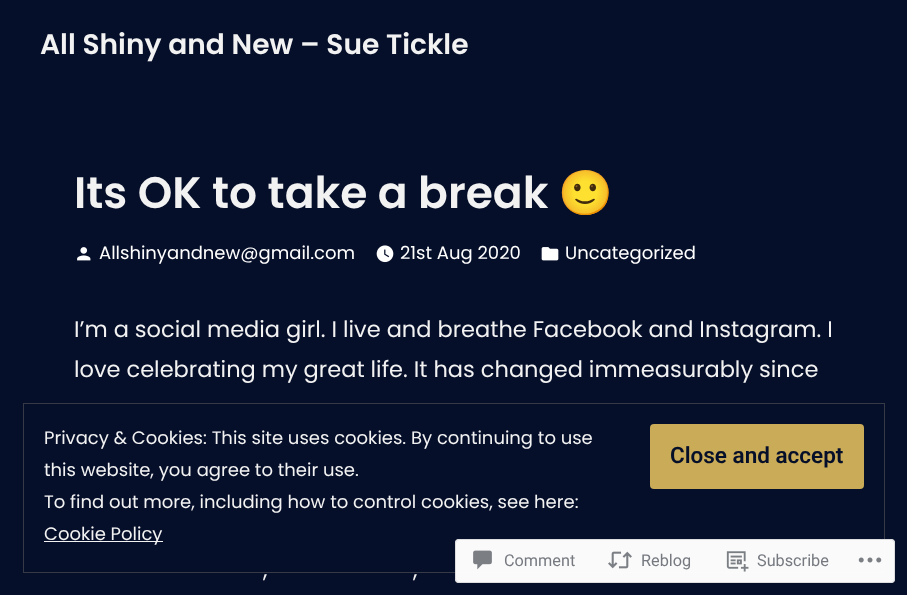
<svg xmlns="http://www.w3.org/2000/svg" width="907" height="595">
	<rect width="100%" height="100%" fill="#060F29" />
	<text x="40" y="54" font-family="Poppins" font-size="28.1" font-weight="600" fill="#F2F2F2">All Shiny and New – Sue Tickle</text>
	<text x="74" y="208" font-family="Poppins" font-size="44" font-weight="600" fill="#F2F2F2">Its OK to take a break</text>
	<text x="558" y="208" font-family="Noto Color Emoji" font-size="44" font-weight="700" fill="#F2F2F2">🙂</text>
	<image x="77" y="247" width="14" height="14" href="assets/img1.png" />
	<text x="99" y="259" font-family="Poppins" font-size="18" fill="#FFFFFF">Allshinyandnew@gmail.com</text>
	<image x="376" y="245" width="18" height="18" href="assets/img2.png" />
	<text x="400" y="259" font-family="Poppins" font-size="18" fill="#FFFFFF">21st Aug 2020</text>
	<image x="541" y="247" width="18" height="14" href="assets/img3.png" />
	<text x="565" y="259" font-family="Poppins" font-size="18" fill="#FFFFFF">Uncategorized</text>
	<g font-family="Poppins" font-size="22.5" fill="#F2F2F2">
		<text x="74" y="337">I’m a social media girl. I live and breathe Facebook and Instagram. I</text>
		<text x="74" y="377">love celebrating my great life. It has changed immeasurably since</text>
		<text x="263" y="577">,</text>
		<text x="413" y="577">,</text>
	</g>
	<rect x="23.5" y="403.5" width="861" height="169" fill="none" stroke="#353A46" />
	<text x="44" y="444" font-family="Poppins" font-size="18" fill="#F2F2F2">Privacy &amp; Cookies: This site uses cookies. By continuing to use</text>
	<rect x="650" y="424" width="214" height="65" rx="4" fill="#CAAB57" />
	<text x="670" y="463" font-family="Roboto" font-size="22.5" font-weight="600" fill="#060F29">Close and accept</text>
	<g font-family="Poppins" font-size="18" fill="#F2F2F2">
		<text x="44" y="476">this website, you agree to their use.</text>
		<text x="44" y="508">To find out more, including how to control cookies, see here:</text>
	</g>
	<rect x="44" y="541" width="119" height="1" fill="#F2F2F2" />
	<text x="44" y="540" font-family="Poppins" font-size="18" fill="#F2F2F2">Cookie Policy</text>
	<rect x="455" y="539" width="440" height="44" rx="4" fill="#FFFFFF" fill-opacity="0.98" />
	<rect x="455.5" y="539.5" width="439" height="43" rx="3.5" fill="none" stroke="#DCDCDE" stroke-opacity="0.98" />
	<image x="473" y="550" width="19" height="20" href="assets/img4.png" />
	<text x="504" y="566" font-family="Roboto" font-size="16.25" fill="#767A80">Comment</text>
	<image x="608" y="551" width="24" height="18" href="assets/img5.png" />
	<text x="641" y="566" font-family="Roboto" font-size="16.25" fill="#767A80">Reblog</text>
	<image x="726" y="551" width="23" height="21" href="assets/img6.png" />
	<text x="757" y="566" font-family="Roboto" font-size="16.25" fill="#767A80">Subscribe</text>
	<image x="858" y="557" width="24" height="6" href="assets/img7.png" />
</svg>
